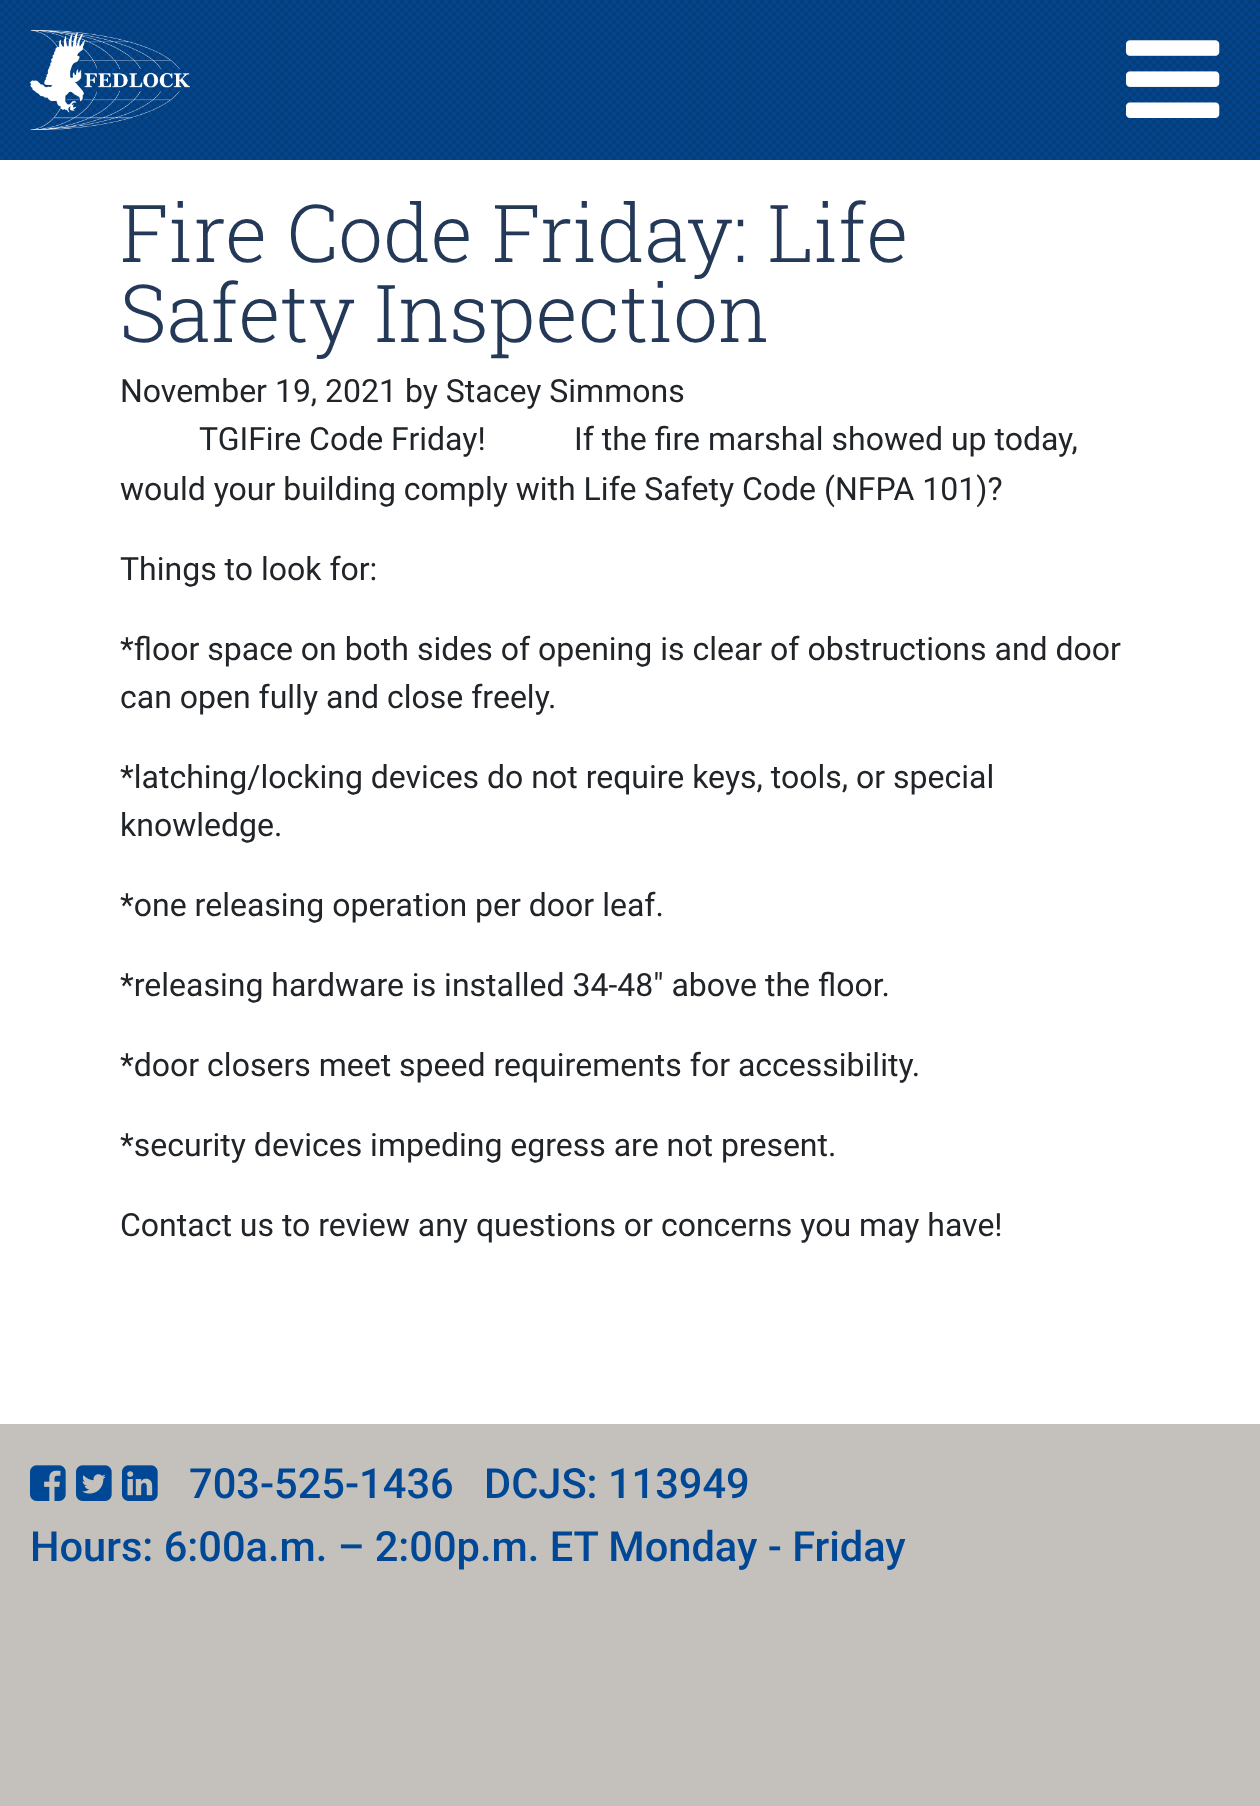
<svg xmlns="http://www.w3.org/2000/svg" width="1260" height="1806">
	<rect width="100%" height="100%" fill="#C4C1BC" />
	<image x="0" y="0" width="1260" height="160" href="assets/img1.png" />
	<image x="30" y="30" width="160" height="100" href="assets/img2.png" />
	<image x="1126" y="40" width="94" height="78" href="assets/img3.png" />
	<rect x="0" y="160" width="1260" height="1264" fill="#FFFFFF" />
	<g font-family="Roboto Slab" font-size="80" font-weight="300" fill="#233957">
		<text x="120" y="262">Fire Code Friday: Life</text>
		<text x="120" y="342">Safety Inspection</text>
	</g>
	<g font-family="Roboto" font-size="32" fill="#212529">
		<text x="120" y="402">November 19, 2021 by Stacey Simmons</text>
		<text x="199" y="450">TGIFire Code Friday!</text>
		<text x="574" y="450">If the fire marshal showed up today,</text>
		<text x="120" y="500">would your building comply with Life Safety Code (NFPA 101)?</text>
		<text x="120" y="580">Things to look for:</text>
		<text x="120" y="660">*floor space on both sides of opening is clear of obstructions and door</text>
		<text x="120" y="708">can open fully and close freely.</text>
		<text x="120" y="788">*latching/locking devices do not require keys, tools, or special</text>
		<text x="120" y="836">knowledge.</text>
		<text x="120" y="916">*one releasing operation per door leaf.</text>
		<text x="120" y="996">*releasing hardware is installed 34-48″ above the floor.</text>
		<text x="120" y="1076">*door closers meet speed requirements for accessibility.</text>
		<text x="120" y="1156">*security devices impeding egress are not present.</text>
		<text x="120" y="1236">Contact us to review any questions or concerns you may have!</text>
	</g>
	<image x="30" y="1465" width="36" height="36" href="assets/img4.png" />
	<image x="76" y="1465" width="36" height="36" href="assets/img5.png" />
	<image x="122" y="1465" width="36" height="36" href="assets/img6.png" />
	<g font-family="Roboto" font-size="41.6" font-weight="500" fill="#004895">
		<text x="189" y="1498">703-525-1436</text>
		<text x="484" y="1498">DCJS: 113949</text>
		<text x="30" y="1561">Hours: 6:00a.m. – 2:00p.m. ET Monday - Friday</text>
	</g>
</svg>
